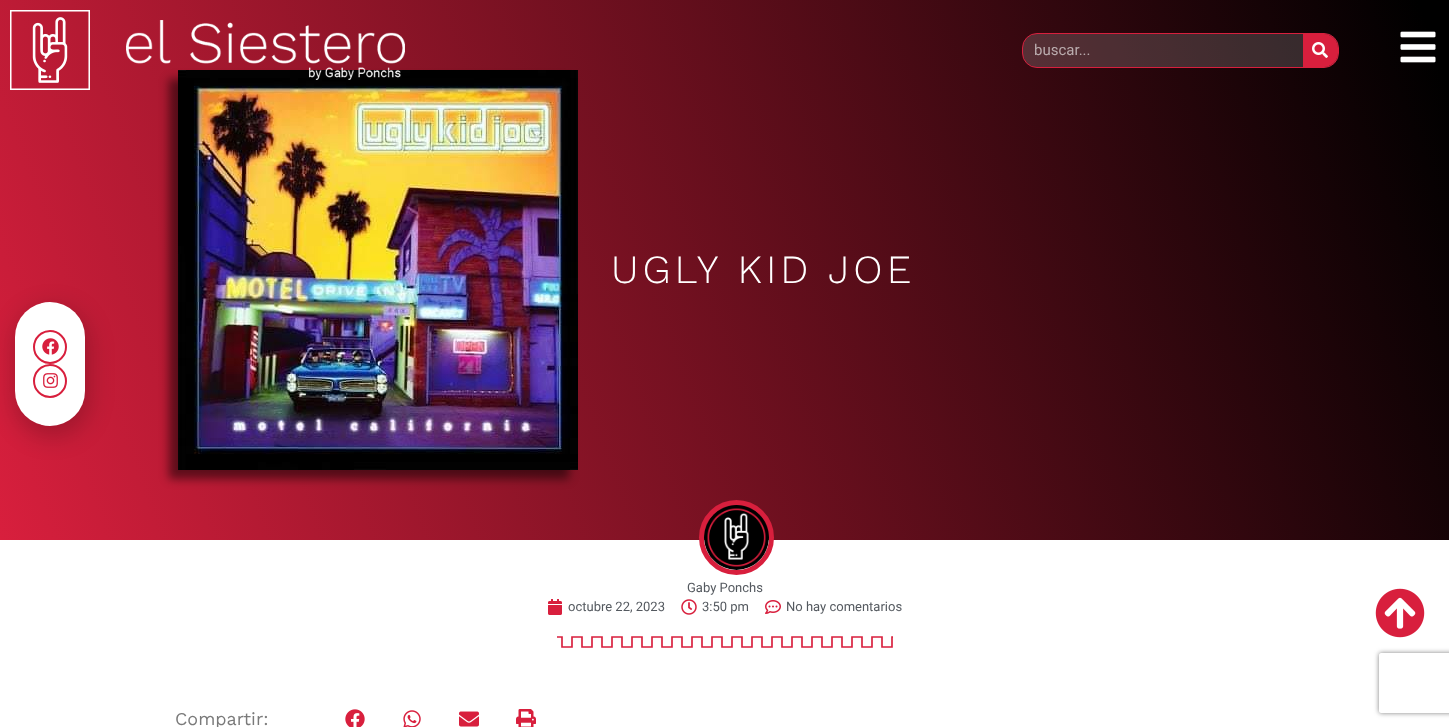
<svg xmlns="http://www.w3.org/2000/svg" width="1449" height="727">
	<defs>
		<linearGradient id="g1" gradientUnits="userSpaceOnUse" x1="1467" y1="-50" x2="-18" y2="490"><stop offset="0.04" stop-color="#000000" /><stop offset="1" stop-color="#D81F3D" /></linearGradient>
		<clipPath id="clip1"><path d="M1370 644H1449V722H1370ZM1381 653H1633C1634 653 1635 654 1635 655V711C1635 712 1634 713 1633 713H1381C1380 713 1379 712 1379 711V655C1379 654 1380 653 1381 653Z" clip-rule="evenodd" /></clipPath>
	</defs>
	<rect width="100%" height="100%" fill="#FFFFFF" />
	<rect x="0" y="0" width="1449" height="540" fill="url(#g1)" />
	<image x="10" y="10" width="80" height="80" href="assets/img1.png" />
	<rect x="169" y="79" width="400" height="400" fill="#000000" fill-opacity="0.5" filter="blur(5px)" />
	<image x="178" y="70" width="400" height="400" href="assets/img7.png" />
	<image x="126" y="20" width="279" height="60" href="assets/img2.png" />
	<rect x="1022.5" y="33.5" width="316" height="34" rx="14.5" fill="#FFFFFF" fill-opacity="0.16" stroke="#D81F3D" />
	<text x="1034" y="55" font-family="Roboto" font-size="15" fill="#BAACAE">buscar...</text>
	<path d="M1303 34H1324C1331.5 34 1338 40.5 1338 48V53C1338 60.5 1331.5 67 1324 67H1303Z" fill="#D81F3D" />
	<image x="1312" y="42" width="16" height="16" href="assets/img3.png" />
	<image x="1400" y="31" width="36" height="32" href="assets/img4.png" />
	<rect x="14" y="307" width="76" height="130" rx="38" fill="#000000" fill-opacity="0.2" filter="blur(11.5px)" />
	<rect x="15" y="302" width="70" height="124" rx="35" fill="#FFFFFF" />
	<circle cx="50" cy="347" r="16" fill="none" stroke="#D81F3D" stroke-width="2" />
	<image x="42" y="338" width="17" height="17" href="assets/img5.png" />
	<circle cx="50" cy="381" r="16" fill="none" stroke="#D81F3D" stroke-width="2" />
	<image x="43" y="373" width="15" height="15" href="assets/img6.png" />
	<text x="611" y="283" font-family="Work Sans" font-size="40" font-weight="300" letter-spacing="4" fill="#FFFFFF">UGLY KID JOE</text>
	<circle cx="736.5" cy="537.5" r="35" fill="none" stroke="#D81F3D" stroke-width="5" />
	<image x="704" y="505" width="65" height="65" href="assets/img8.png" />
	<text x="687" y="592" font-family="Roboto" font-size="13" fill="#54595F">Gaby Ponchs</text>
	<image x="548" y="599" width="14" height="16" href="assets/img9.png" />
	<text x="568" y="611" font-family="Roboto" font-size="13" fill="#54595F">octubre 22, 2023</text>
	<image x="681" y="599" width="16" height="16" href="assets/img10.png" />
	<text x="702" y="611" font-family="Roboto" font-size="13" fill="#54595F">3:50 pm</text>
	<image x="765" y="600" width="16" height="14" href="assets/img11.png" />
	<text x="786" y="611" font-family="Roboto" font-size="13" fill="#54595F">No hay comentarios</text>
	<image x="557" y="636" width="336" height="12" href="assets/img12.png" />
	<text x="175" y="725" font-family="Work Sans" font-size="18" fill="#7A7A7A">Compartir:</text>
	<image x="345" y="709" width="20" height="18" href="assets/img13.png" />
	<image x="403" y="710" width="18" height="17" href="assets/img14.png" />
	<image x="459" y="711" width="20" height="16" href="assets/img15.png" />
	<image x="516" y="709" width="20" height="18" href="assets/img16.png" />
	<image x="1375" y="588" width="50" height="50" href="assets/img17.png" />
	<g clip-path="url(#clip1)">
		<rect x="1379" y="653" width="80" height="60" rx="2" fill="#808080" filter="blur(2.5px)" />
	</g>
</svg>
